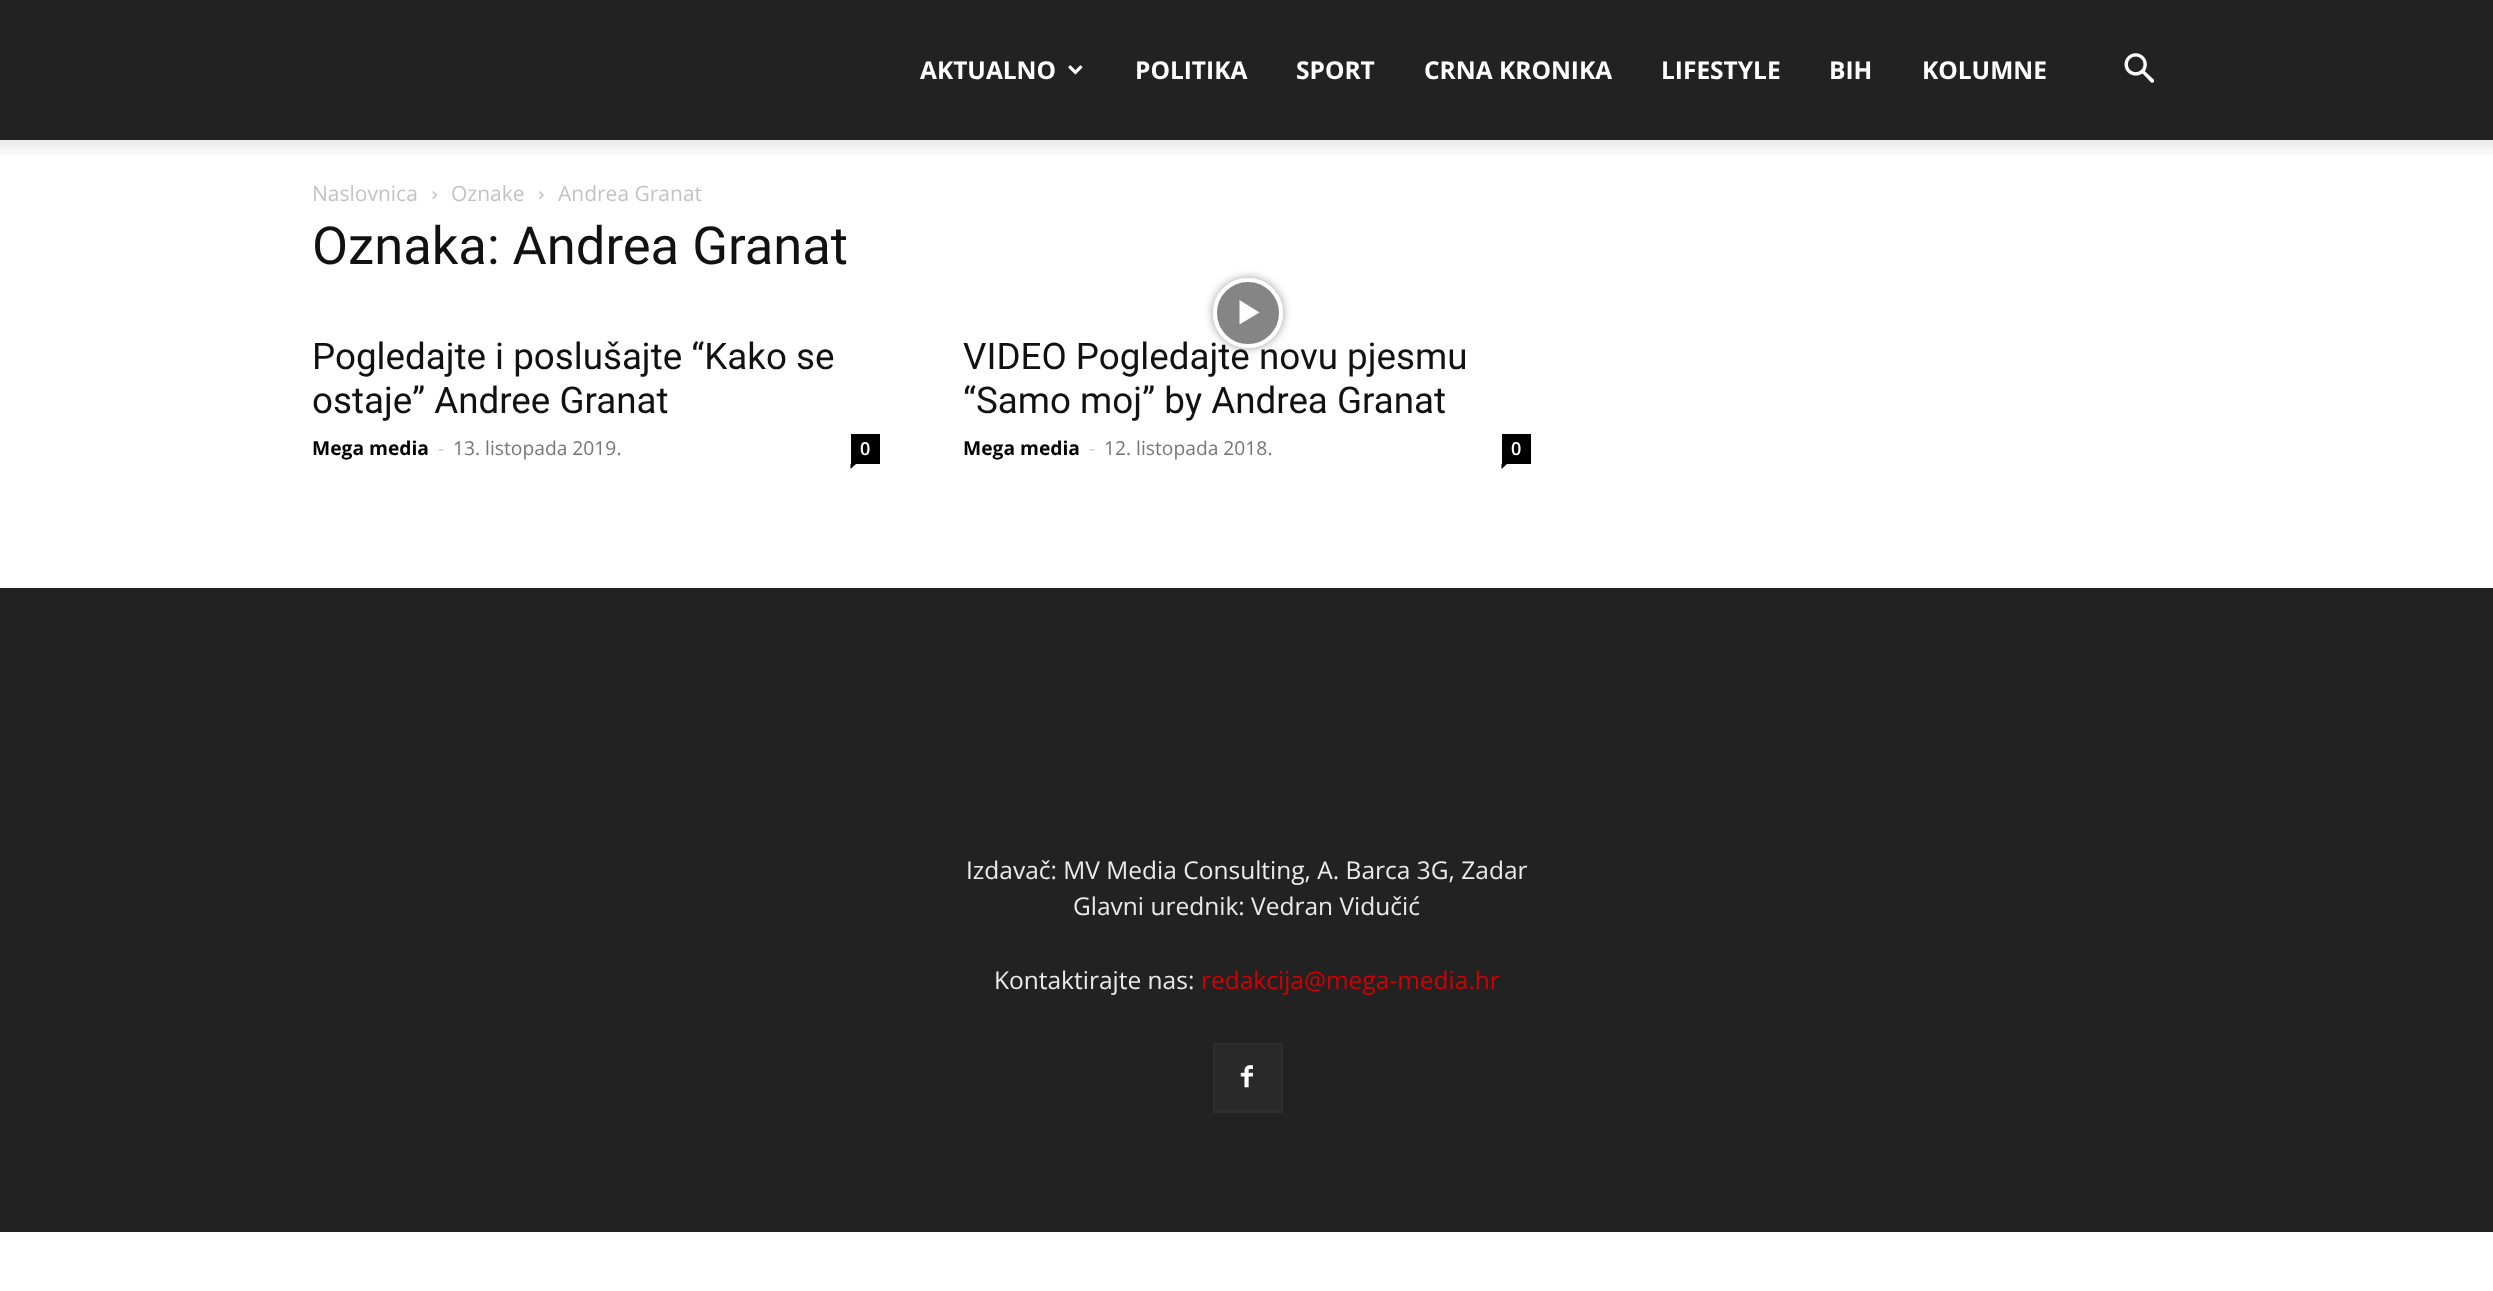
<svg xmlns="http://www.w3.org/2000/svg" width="2493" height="1291">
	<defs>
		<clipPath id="clip1"><path d="M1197 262H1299V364H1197ZM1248 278C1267.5 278 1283 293.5 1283 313C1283 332.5 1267.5 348 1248 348C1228.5 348 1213 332.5 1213 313C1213 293.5 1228.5 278 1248 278Z" clip-rule="evenodd" /></clipPath>
	</defs>
	<rect width="100%" height="100%" fill="#FFFFFF" />
	<rect x="0" y="0" width="2493" height="140" fill="#222222" />
	<text x="920" y="79" font-family="Open Sans" font-size="24.5" font-weight="700" fill="#FFFFFF">AKTUALNO</text>
	<image x="1068" y="65" width="15" height="10" href="assets/img1.png" />
	<g font-family="Open Sans" font-size="24.5" font-weight="700" fill="#FFFFFF">
		<text x="1135" y="79">POLITIKA</text>
		<text x="1296" y="79">SPORT</text>
		<text x="1424" y="79">CRNA KRONIKA</text>
		<text x="1661" y="79">LIFESTYLE</text>
		<text x="1829" y="79">BIH</text>
		<text x="1922" y="79">KOLUMNE</text>
	</g>
	<image x="2124" y="53" width="31" height="30" href="assets/img2.png" />
	<image x="0" y="140" width="2493" height="15" href="assets/img3.png" />
	<text x="312" y="201" font-family="Open Sans" font-size="21" fill="#C3C3C3">Naslovnica</text>
	<image x="432" y="191" width="5" height="9" href="assets/img4.png" />
	<text x="451" y="201" font-family="Open Sans" font-size="21" fill="#C3C3C3">Oznake</text>
	<image x="539" y="191" width="5" height="9" href="assets/img5.png" />
	<text x="558" y="201" font-family="Open Sans" font-size="21" fill="#C3C3C3">Andrea Granat</text>
	<text x="312" y="264" font-family="Roboto" font-size="52.5" fill="#111111">Oznaka: Andrea Granat</text>
	<g font-family="Roboto" font-size="36.75" fill="#111111">
		<text x="312" y="369">Pogledajte i poslušajte “Kako se</text>
		<text x="312" y="413">ostaje” Andree Granat</text>
	</g>
	<text x="312" y="455" font-family="Open Sans" font-size="19.25" font-weight="700" fill="#000000">Mega media</text>
	<text x="438" y="455" font-family="Open Sans" font-size="19.25" fill="#CCCCCC">-</text>
	<text x="453" y="455" font-family="Open Sans" font-size="19.25" fill="#767676">13. listopada 2019.</text>
	<rect x="851" y="434" width="29" height="30" fill="#000000" />
	<text x="860" y="455" font-family="Open Sans" font-size="18" font-weight="600" fill="#FFFFFF">0</text>
	<path d="M850.5 464H856L850.5 469Z" fill="#000000" />
	<g clip-path="url(#clip1)">
		<rect x="1213" y="278" width="70" height="70" rx="35" fill="#000000" fill-opacity="0.4" filter="blur(5px)" />
	</g>
	<text x="963" y="369" font-family="Roboto" font-size="36.75" fill="#111111">VIDEO Pogledajte novu pjesmu</text>
	<circle cx="1248" cy="313" r="33" fill="#000000" fill-opacity="0.48" stroke="#FFFFFF" stroke-width="4" />
	<path d="M1239.5 300V324.5L1259.5 312.5Z" fill="#FFFFFF" />
	<text x="963" y="413" font-family="Roboto" font-size="36.75" fill="#111111">“Samo moj” by Andrea Granat</text>
	<text x="963" y="455" font-family="Open Sans" font-size="19.25" font-weight="700" fill="#000000">Mega media</text>
	<text x="1089" y="455" font-family="Open Sans" font-size="19.25" fill="#CCCCCC">-</text>
	<text x="1104" y="455" font-family="Open Sans" font-size="19.25" fill="#767676">12. listopada 2018.</text>
	<rect x="1502" y="434" width="29" height="30" fill="#000000" />
	<text x="1511" y="455" font-family="Open Sans" font-size="18" font-weight="600" fill="#FFFFFF">0</text>
	<path d="M1501.5 464H1507L1501.5 469Z" fill="#000000" />
	<rect x="0" y="588" width="2493" height="644" fill="#222222" />
	<g font-family="Open Sans" font-size="24.5" fill="#EAEAEA">
		<text x="966" y="879">Izdavač: MV Media Consulting, A. Barca 3G, Zadar</text>
		<text x="1073" y="915">Glavni urednik: Vedran Vidučić</text>
		<text x="994" y="989">Kontaktirajte nas:</text>
	</g>
	<text x="1201" y="989" font-family="Open Sans" font-size="24.5" fill="#D30003">redakcija@mega-media.hr</text>
	<rect x="1215" y="1045" width="66" height="66" fill="#292929" />
	<image x="1240" y="1065" width="13" height="23" href="assets/img6.png" />
	<rect x="1214" y="1044" width="68" height="68" fill="none" stroke="#2F2F2F" stroke-width="2" />
</svg>
